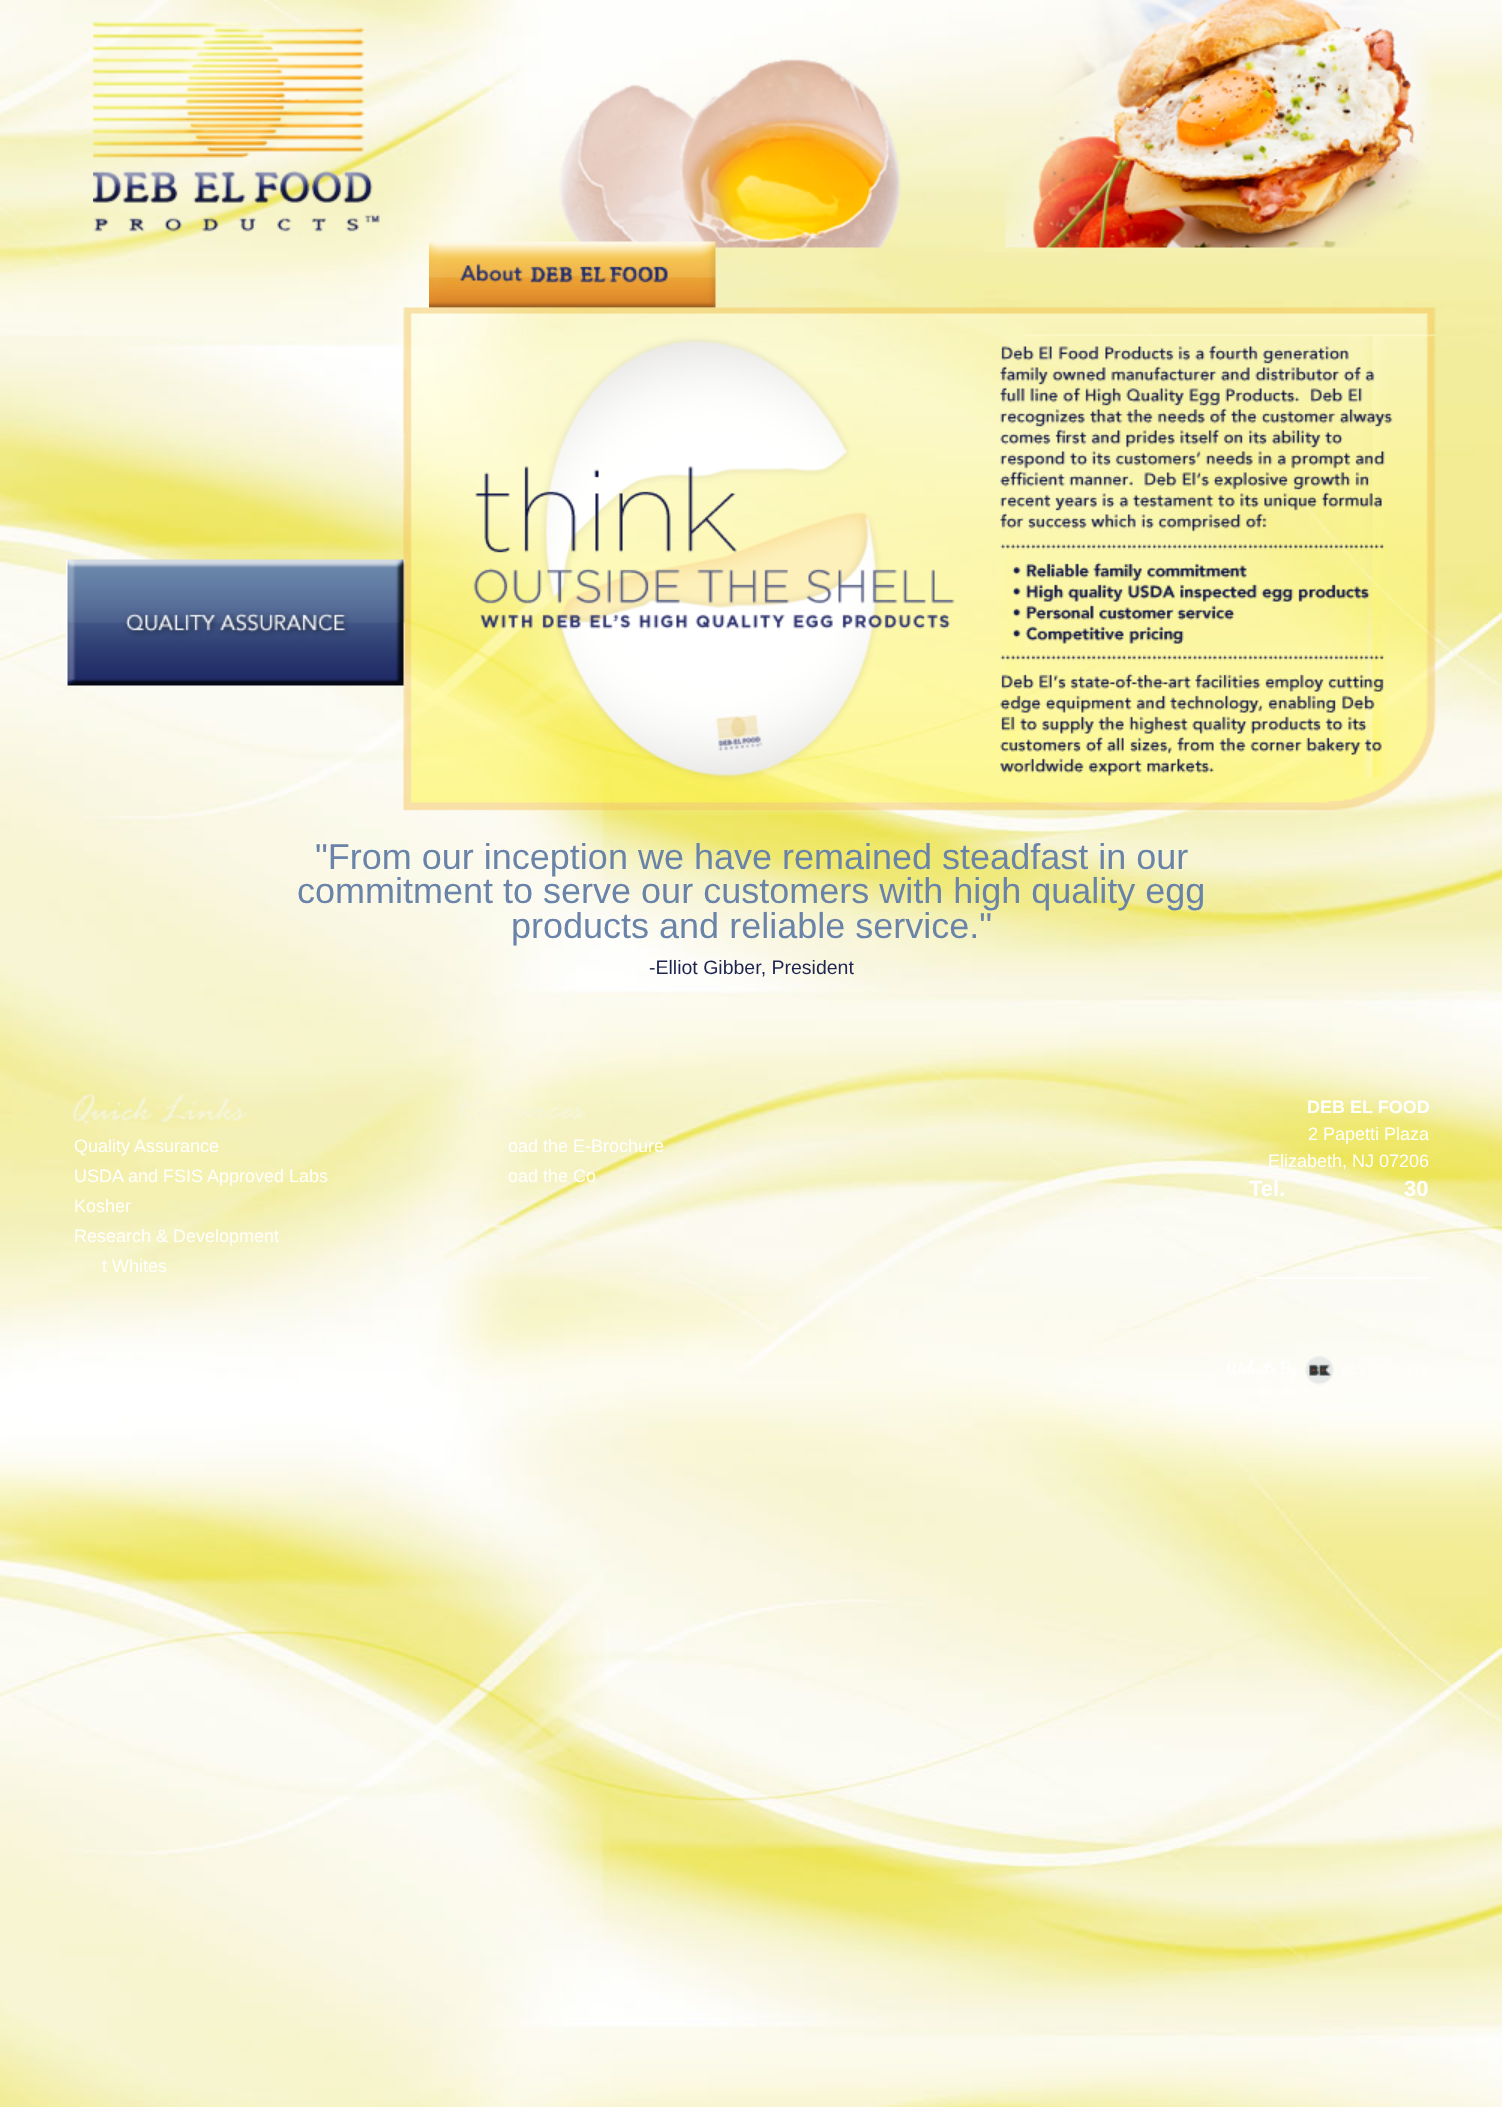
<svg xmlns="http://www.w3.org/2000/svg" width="1502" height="2107">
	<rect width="100%" height="100%" fill="#FFFFFF" />
	<image x="0" y="0" width="1502" height="2107" href="assets/img1.png" />
	<image x="559" y="0" width="873" height="248" href="assets/img2.png" />
	<image x="93" y="21" width="287" height="211" href="assets/img3.png" />
	<image x="429" y="241" width="287" height="67" href="assets/img4.png" />
	<image x="403" y="307" width="1033" height="504" href="assets/img6.png" />
	<image x="66" y="559" width="339" height="127" href="assets/img5.png" />
	<g font-family="Liberation Sans" font-size="36" fill="#6A83A9">
		<text x="315" y="869">"From our inception we have remained steadfast in our</text>
		<text x="297" y="903">commitment to serve our customers with high quality egg</text>
		<text x="511" y="938">products and reliable service."</text>
	</g>
	<text x="649" y="974" font-family="Liberation Sans" font-size="19.5" fill="#1D254E">-Elliot Gibber, President</text>
	<image x="73" y="1093" width="175" height="31" href="assets/img7.png" />
	<g font-family="Liberation Sans" font-size="18" fill="#FFFFFF">
		<text x="74" y="1152">Quality Assurance</text>
		<text x="74" y="1182">USDA and FSIS</text>
		<text x="207" y="1182">Approved Labs</text>
		<text x="74" y="1212">Kosher</text>
		<text x="74" y="1242">Research &amp; Development</text>
		<text x="102" y="1272">t Whites</text>
	</g>
	<image x="457" y="1095" width="130" height="28" href="assets/img8.png" />
	<g font-family="Liberation Sans" font-size="18" fill="#FFFFFF">
		<text x="508" y="1152">oad the E-Brochure</text>
		<text x="508" y="1182">oad the Co</text>
	</g>
	<text x="1307" y="1113" font-family="Liberation Sans" font-size="18" font-weight="700" fill="#FFFFFF">DEB EL FOOD</text>
	<g font-family="Liberation Sans" font-size="18" fill="#FFFFFF">
		<text x="1308" y="1140">2 Papetti Plaza</text>
		<text x="1268" y="1167">Elizabeth, NJ 07206</text>
	</g>
	<g font-family="Liberation Sans" font-size="22" font-weight="700" fill="#FFFFFF">
		<text x="1249" y="1196">Tel.</text>
		<text x="1404" y="1196">30</text>
	</g>
	<rect x="1256" y="1277" width="174" height="2" fill="#FFFFFF" />
	<image x="1227" y="1356" width="202" height="29" href="assets/img9.png" />
</svg>
